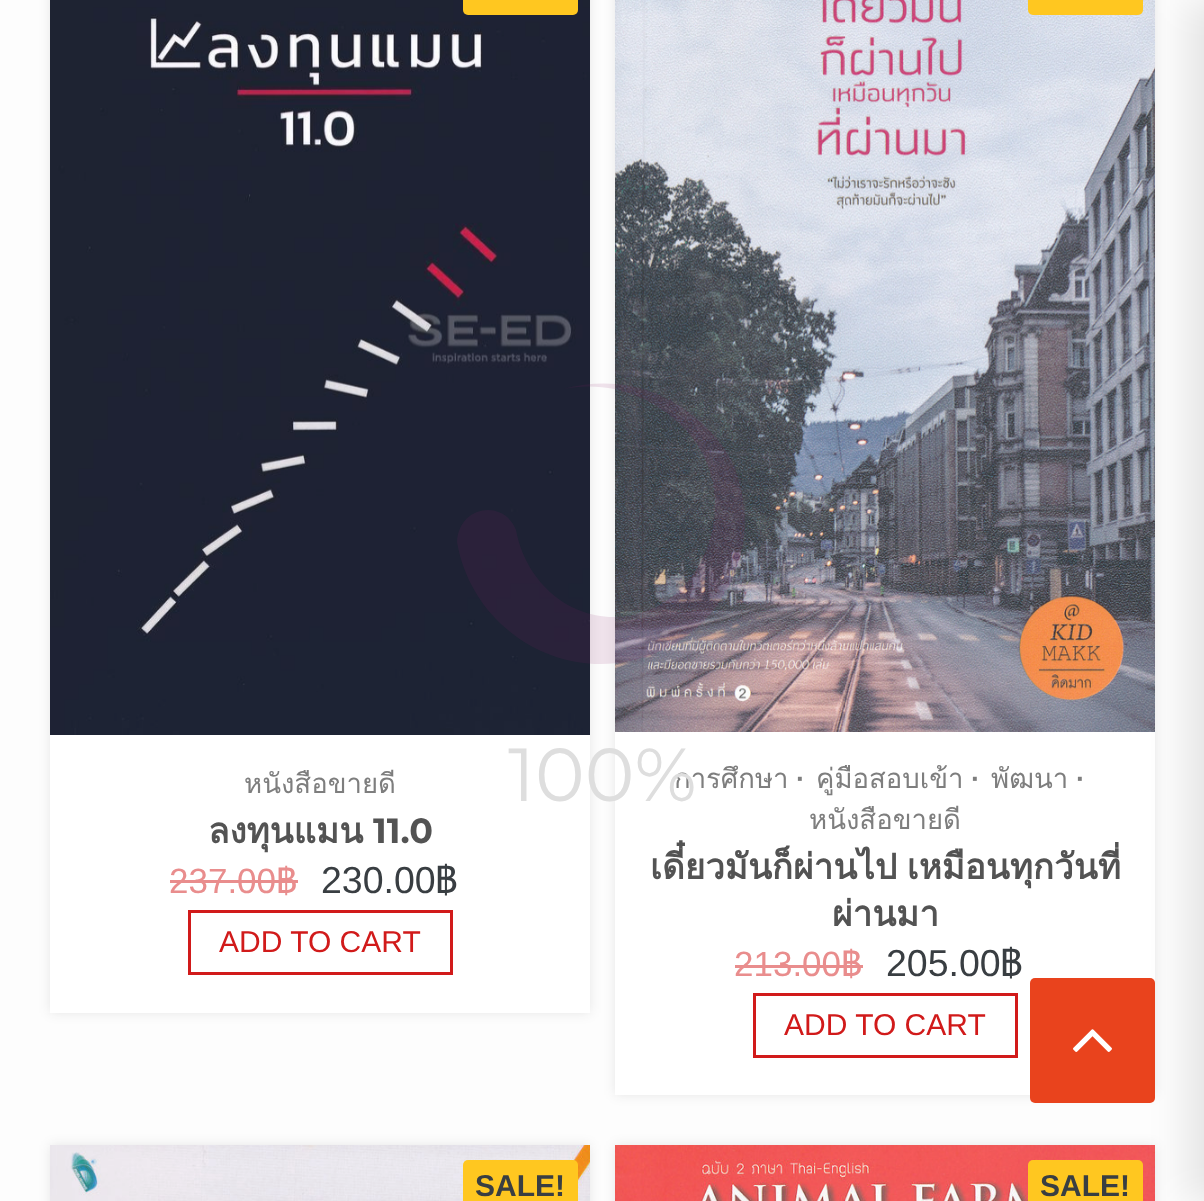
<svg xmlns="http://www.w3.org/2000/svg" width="1204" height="1201">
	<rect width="100%" height="100%" fill="#FDFDFD" />
	<rect x="50" y="-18" width="540" height="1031" fill="#1A1A1A" fill-opacity="0.1" filter="blur(6px)" />
	<image x="50" y="0" width="540" height="735" href="assets/img1.png" />
	<rect x="615" y="-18" width="540" height="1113" fill="#1A1A1A" fill-opacity="0.1" filter="blur(6px)" />
	<image x="615" y="0" width="540" height="732" href="assets/img2.png" />
	<path d="M516 530C525 579 565 617 614 617C670 617 712 569 715 509C717 465 693 421 639 397C615 386 588 384 563 389C615 375 660 389 691 414C710 429 729 450 736 471C741 486 744 502 745 518C745 599 682 664 601 664C530 664 469 612 457 542C459 505 504 499 516 530Z" fill="#8B1F6D" fill-opacity="0.12" />
	<rect x="50" y="735" width="540" height="278" fill="#FFFFFF" />
	<rect x="615" y="732" width="540" height="363" fill="#FFFFFF" />
	<text x="674" y="788" font-family="Loma" font-size="27.5" fill="#7E7E7E">การศึกษา</text>
	<text x="508" y="801" font-family="Montserrat" font-size="75" fill="#DEDEDE">100%</text>
	<rect x="463" y="-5" width="115" height="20" rx="5" fill="#FFC720" />
	<text x="244" y="793" font-family="Loma" font-size="27.5" fill="#7E7E7E">หนังสือขายดี</text>
	<text x="208" y="843" font-family="Loma" font-size="35" font-weight="700" fill="#535353">ลงทุนแมน</text>
	<text x="373" y="843" font-family="Montserrat" font-size="35" font-weight="700" fill="#535353">11.0</text>
	<text x="169" y="893" font-family="Liberation Sans" font-size="35" fill="#E98D8D">237.00</text>
	<rect x="170" y="880" width="108" height="3" fill="#E98D8D" />
	<text x="276" y="893" font-family="Loma" font-size="35" fill="#E98D8D">฿</text>
	<rect x="278" y="880" width="20" height="3" fill="#E98D8D" />
	<text x="321" y="893" font-family="Liberation Sans" font-size="37.5" fill="#393E42">230.00</text>
	<text x="435" y="893" font-family="Loma" font-size="37.5" fill="#393E42">฿</text>
	<rect x="189.5" y="911.5" width="262" height="62" fill="none" stroke="#D11A1A" stroke-width="3" />
	<text x="219" y="952" font-family="Liberation Sans" font-size="30" fill="#D11A1A">ADD TO CART</text>
	<rect x="1028" y="-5" width="115" height="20" rx="5" fill="#FFC720" />
	<text x="796" y="788" font-family="Liberation Sans" font-size="27.5" font-weight="700" fill="#7E7E7E">∙</text>
	<text x="816" y="788" font-family="Loma" font-size="27.5" fill="#7E7E7E">คู่มือสอบเข้า</text>
	<text x="971" y="788" font-family="Liberation Sans" font-size="27.5" font-weight="700" fill="#7E7E7E">∙</text>
	<text x="991" y="788" font-family="Loma" font-size="27.5" fill="#7E7E7E">พัฒนา</text>
	<text x="1076" y="788" font-family="Liberation Sans" font-size="27.5" font-weight="700" fill="#7E7E7E">∙</text>
	<text x="809" y="829" font-family="Loma" font-size="27.5" fill="#7E7E7E">หนังสือขายดี</text>
	<g font-family="Loma" font-size="35" font-weight="700" fill="#535353">
		<text x="650" y="879" word-spacing="-2">เดี๋ยวมันก็ผ่านไป เหมือนทุกวันที่</text>
		<text x="832" y="926">ผ่านมา</text>
	</g>
	<text x="734" y="976" font-family="Liberation Sans" font-size="35" fill="#E98D8D">213.00</text>
	<rect x="735" y="965" width="108" height="3" fill="#E98D8D" />
	<text x="841" y="976" font-family="Loma" font-size="35" fill="#E98D8D">฿</text>
	<rect x="843" y="965" width="20" height="3" fill="#E98D8D" />
	<text x="886" y="976" font-family="Liberation Sans" font-size="37.5" fill="#393E42">205.00</text>
	<text x="1000" y="976" font-family="Loma" font-size="37.5" fill="#393E42">฿</text>
	<rect x="754.5" y="994.5" width="262" height="62" fill="none" stroke="#D11A1A" stroke-width="3" />
	<text x="784" y="1035" font-family="Liberation Sans" font-size="30" fill="#D11A1A">ADD TO CART</text>
	<rect x="50" y="1145" width="540" height="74" fill="#1A1A1A" fill-opacity="0.1" filter="blur(6px)" />
	<image x="50" y="1145" width="540" height="56" href="assets/img3.png" />
	<rect x="463" y="1160" width="115" height="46" rx="5" fill="#FFC720" />
	<text x="475" y="1196" font-family="Liberation Sans" font-size="30" font-weight="700" fill="#393E42">SALE!</text>
	<rect x="615" y="1145" width="540" height="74" fill="#1A1A1A" fill-opacity="0.1" filter="blur(6px)" />
	<image x="615" y="1145" width="540" height="56" href="assets/img4.png" />
	<rect x="1028" y="1160" width="115" height="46" rx="5" fill="#FFC720" />
	<text x="1040" y="1196" font-family="Liberation Sans" font-size="30" font-weight="700" fill="#393E42">SALE!</text>
	<rect x="1030" y="978" width="125" height="125" rx="5" fill="#E9431D" />
	<rect x="1188" y="0" width="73" height="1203" fill="#000000" fill-opacity="0.1" filter="blur(19px)" />
	<image x="1073" y="1029" width="39" height="23" href="assets/img5.png" />
</svg>
